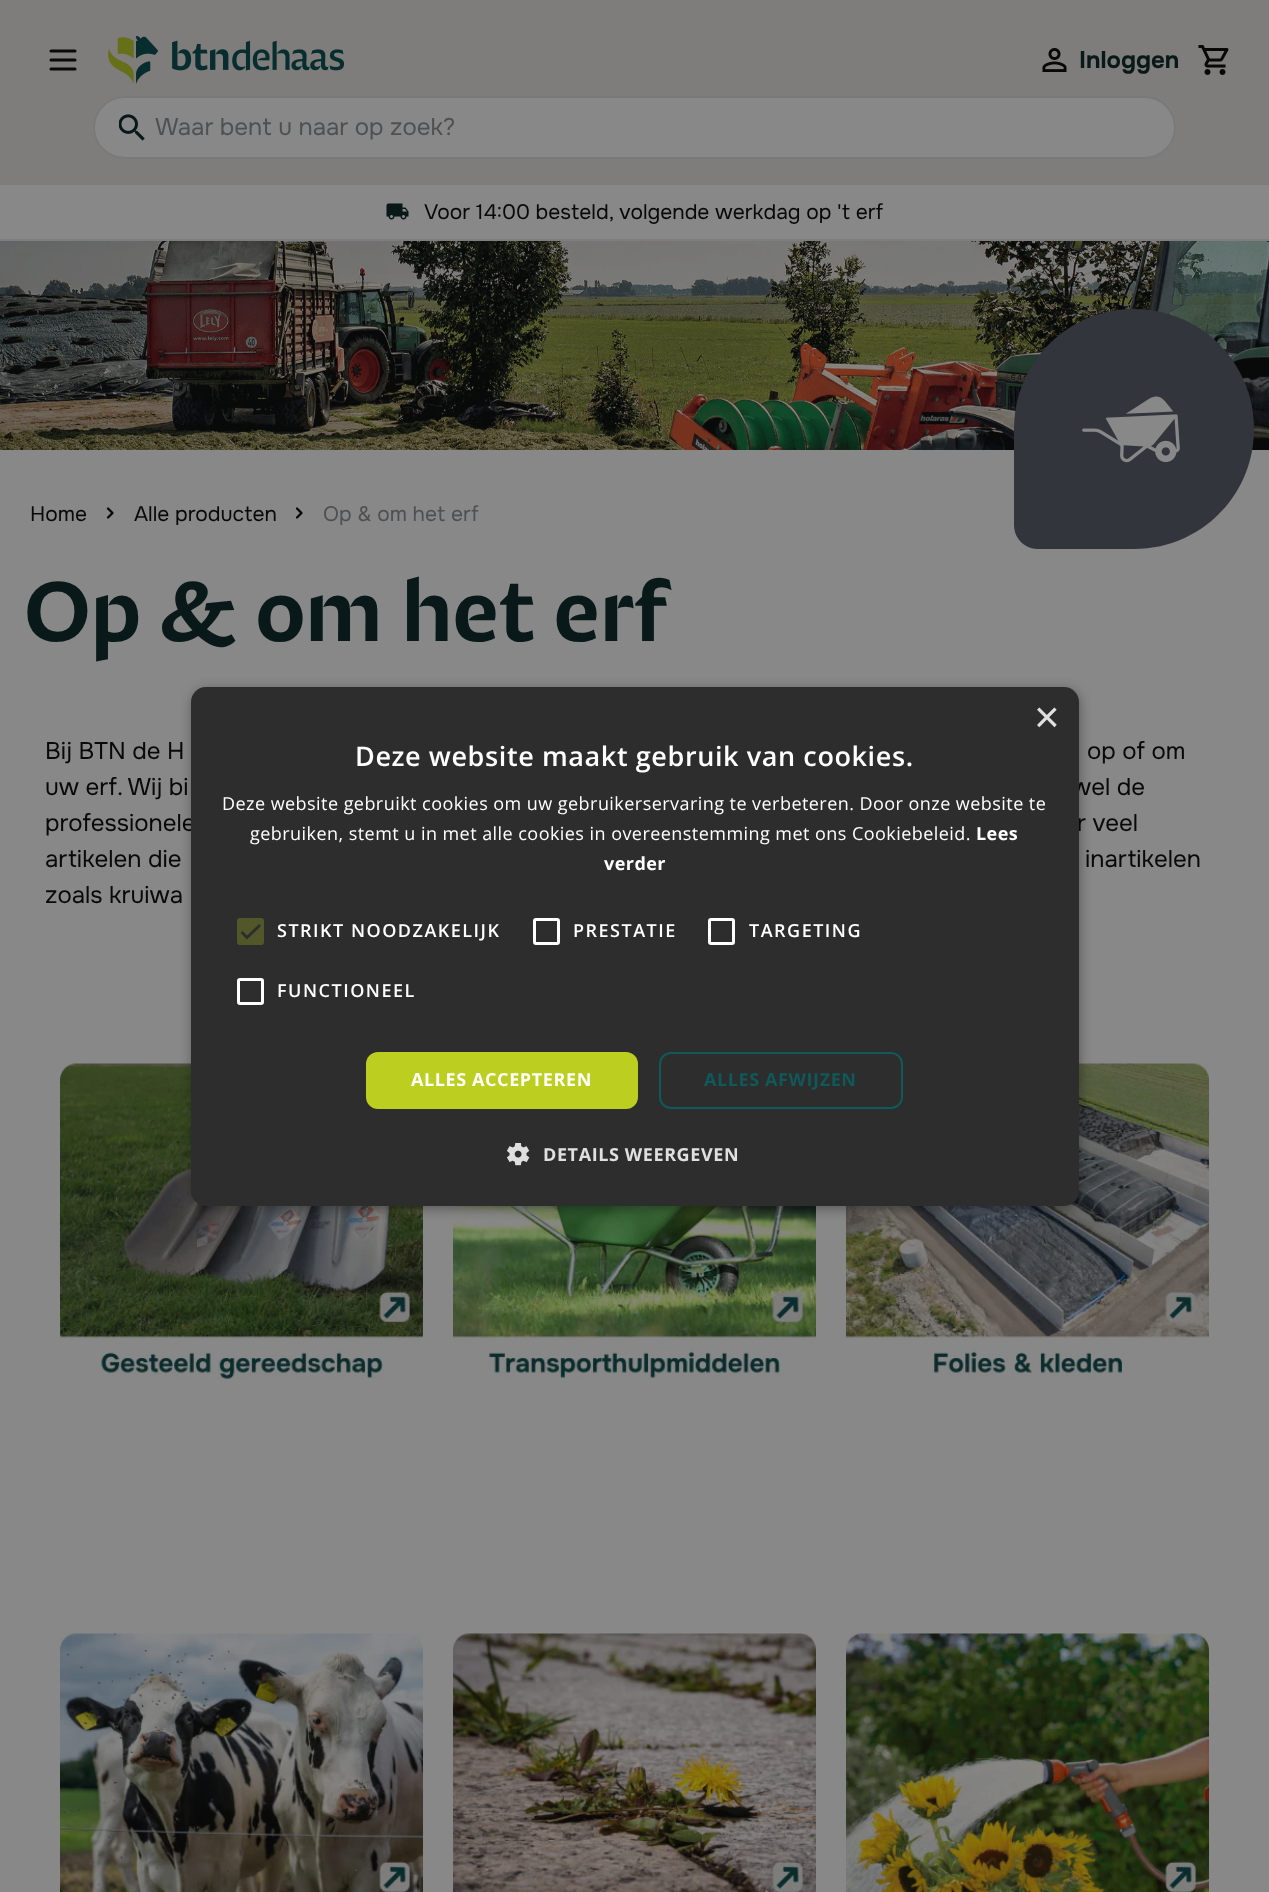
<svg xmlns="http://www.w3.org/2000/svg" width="1269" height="1892">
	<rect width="100%" height="100%" fill="#888888" />
	<rect x="0" y="0" width="1269" height="183" fill="#7E7D7C" />
	<rect x="0" y="183" width="1269" height="2" fill="#7B7C7E" />
	<path d="M51 51H75M51 60H75M51 69H75" fill="none" stroke="#090909" stroke-width="3" stroke-linecap="round" stroke-linejoin="round" />
	<image x="108" y="36" width="237" height="48" href="assets/img1.png" />
	<image x="1042" y="48" width="25" height="24" href="assets/img2.png" />
	<text x="1079" y="68" font-family="Onest" font-size="24" font-weight="700" fill="#091919">Inloggen</text>
	<image x="1198" y="45" width="31" height="30" href="assets/img3.png" />
	<rect x="93" y="96" width="1083" height="63" rx="31.5" fill="#888888" />
	<image x="119" y="114" width="26" height="27" href="assets/img4.png" />
	<rect x="94" y="97" width="1081" height="61" rx="30.5" fill="none" stroke="#78797A" stroke-width="2" />
	<text x="155" y="135" font-family="Onest" font-size="24" fill="#4E5154">Waar bent u naar op zoek?</text>
	<rect x="0" y="239" width="1269" height="2" fill="#7E7E7F" />
	<image x="386" y="203" width="23" height="17" href="assets/img5.png" />
	<text x="424" y="219" font-family="Onest" font-size="21" fill="#090909">Voor 14:00 besteld, volgende werkdag op 't erf</text>
	<image x="0" y="241" width="1269" height="209" href="assets/img6.png" />
	<text x="30" y="521" font-family="Onest" font-size="21" fill="#090909">Home</text>
	<image x="106" y="507" width="8" height="12" href="assets/img7.png" />
	<text x="134" y="521" font-family="Onest" font-size="21" fill="#090909">Alle producten</text>
	<image x="295" y="507" width="8" height="12" href="assets/img7.png" />
	<text x="323" y="521" font-family="Onest" font-size="21" fill="#4E5154">Op &amp; om het erf</text>
	<path d="M1134 309C1200.5 309 1254 362.5 1254 429C1254 495.5 1200.5 549 1134 549H1038C1024.5 549 1014 538.5 1014 525V429C1014 362.5 1067.5 309 1134 309Z" fill="#32363C" />
	<image x="1082" y="396" width="98" height="67" href="assets/img8.png" />
	<text x="24" y="641" font-family="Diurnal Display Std" font-size="84" font-weight="500" fill="#091919">Op &amp; om het erf</text>
	<g font-family="Onest" font-size="24" fill="#090909">
		<text x="45" y="759">Bij BTN de H</text>
		<text x="1087" y="759">op of om</text>
		<text x="45" y="795">uw erf. Wij bi</text>
		<text x="1071" y="795">wel de</text>
		<text x="45" y="831">professionele</text>
		<text x="1077" y="831">r veel</text>
		<text x="45" y="867">artikelen die</text>
		<text x="1085" y="867">inartikelen</text>
		<text x="45" y="903">zoals kruiwa</text>
	</g>
	<image x="60" y="1063" width="363" height="317" href="assets/img9.png" />
	<image x="453" y="1206" width="363" height="174" href="assets/img10.png" />
	<image x="846" y="1063" width="363" height="316" href="assets/img11.png" />
	<image x="60" y="1633" width="363" height="259" href="assets/img12.png" />
	<image x="453" y="1633" width="363" height="259" href="assets/img13.png" />
	<image x="846" y="1633" width="363" height="259" href="assets/img14.png" />
	<rect x="192" y="690" width="888" height="519" rx="15" fill="#000000" fill-opacity="0.35" filter="blur(6px)" />
	<rect x="191" y="687" width="888" height="519" rx="15" fill="#2D2D2D" />
	<text x="1034" y="732" font-family="Liberation Sans" font-size="44" fill="#E0E0E0">×</text>
	<text x="355" y="766" font-family="Open Sans" font-size="27" font-weight="600" letter-spacing="0.6" fill="#FFFFFF">Deze website maakt gebruik van cookies.</text>
	<g font-family="Open Sans" font-size="18" letter-spacing="0.45" fill="#FFFFFF">
		<text x="222" y="810">Deze website gebruikt cookies om uw gebruikerservaring te verbeteren. Door onze website te</text>
		<text x="250" y="840">gebruiken, stemt u in met alle cookies in overeenstemming met ons Cookiebeleid.</text>
	</g>
	<g font-family="Open Sans" font-size="18" font-weight="700" letter-spacing="0.45" fill="#FFFFFF">
		<text x="976" y="840">Lees</text>
		<text x="604" y="870">verder</text>
	</g>
	<rect x="237" y="918" width="27" height="27" rx="3" fill="#52572A" />
	<path d="M241.5 932L247 937.5L260 925" fill="none" stroke="#2D2D2D" stroke-width="2.7" />
	<text x="277" y="937" font-family="Open Sans" font-size="18" font-weight="600" letter-spacing="1.5" fill="#FFFFFF">STRIKT NOODZAKELIJK</text>
	<rect x="534.5" y="919.5" width="24" height="24" rx="1.5" fill="none" stroke="#FFFFFF" stroke-width="3" />
	<text x="573" y="937" font-family="Open Sans" font-size="18" font-weight="600" letter-spacing="1.5" fill="#FFFFFF">PRESTATIE</text>
	<rect x="709.5" y="919.5" width="24" height="24" rx="1.5" fill="none" stroke="#FFFFFF" stroke-width="3" />
	<text x="749" y="937" font-family="Open Sans" font-size="18" font-weight="600" letter-spacing="1.5" fill="#FFFFFF">TARGETING</text>
	<rect x="238.5" y="979.5" width="24" height="24" rx="1.5" fill="none" stroke="#FFFFFF" stroke-width="3" />
	<text x="277" y="997" font-family="Open Sans" font-size="18" font-weight="600" letter-spacing="1.5" fill="#FFFFFF">FUNCTIONEEL</text>
	<rect x="366" y="1052" width="272" height="57" rx="12" fill="#BCCF21" />
	<text x="411" y="1086" font-family="Open Sans" font-size="18" font-weight="700" letter-spacing="0.6" fill="#FFFFFF">ALLES ACCEPTEREN</text>
	<rect x="660" y="1053" width="242" height="55" rx="11" fill="none" stroke="#0F595A" stroke-width="2" />
	<text x="704" y="1086" font-family="Open Sans" font-size="18" font-weight="700" letter-spacing="0.6" fill="#0F595A">ALLES AFWIJZEN</text>
	<image x="507" y="1143" width="23" height="23" href="assets/img15.png" />
	<text x="543" y="1161" font-family="Open Sans" font-size="18" font-weight="700" letter-spacing="0.6" fill="#E0E0E0">DETAILS WEERGEVEN</text>
</svg>
